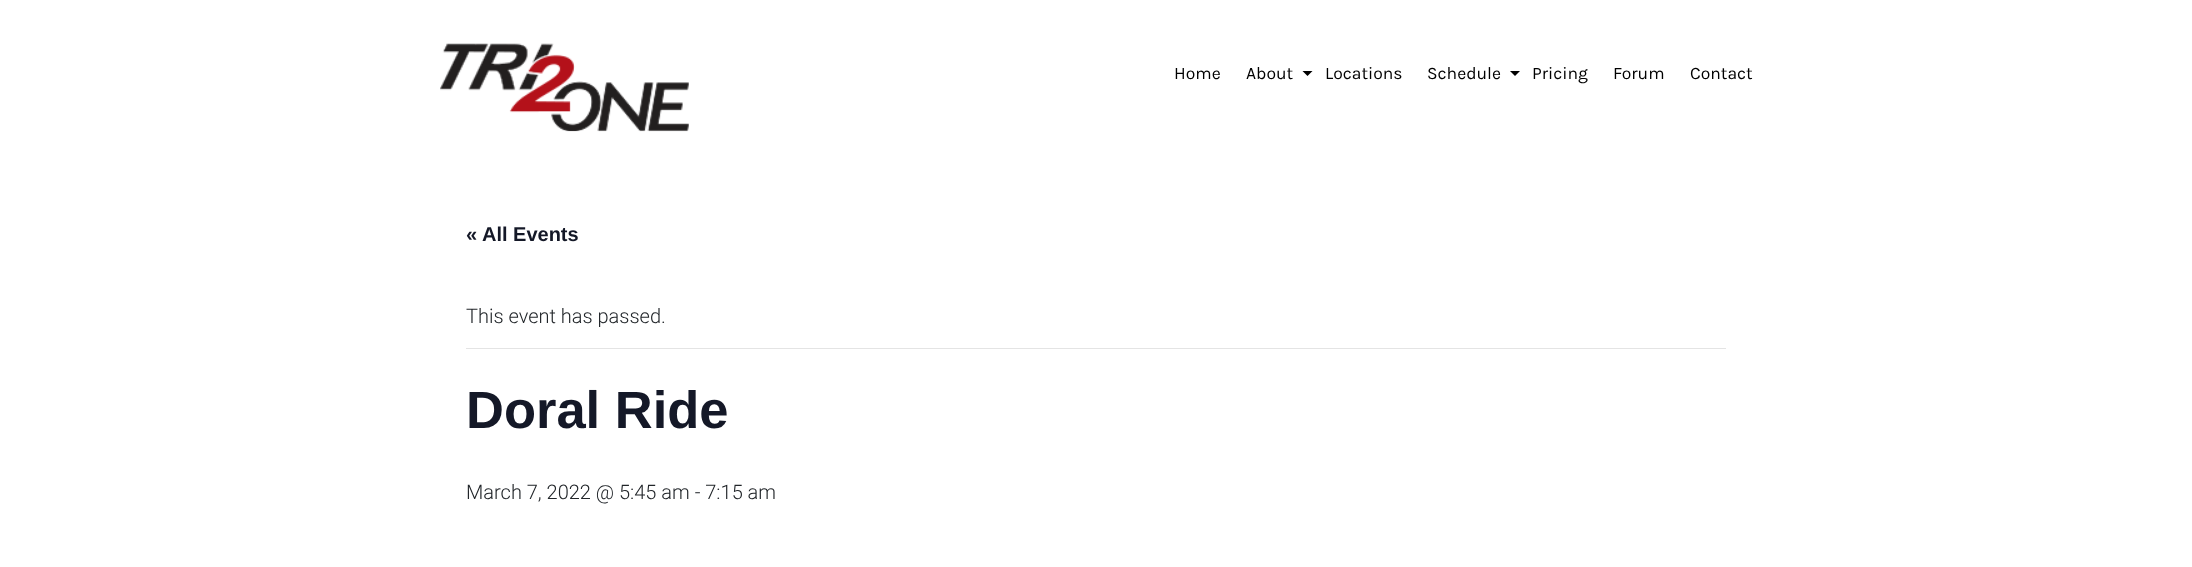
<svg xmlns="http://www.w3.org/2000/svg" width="2192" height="567">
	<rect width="100%" height="100%" fill="#FFFFFF" />
	<image x="440" y="43" width="249" height="89" href="assets/img1.png" />
	<g font-family="Karla" font-size="17.5" fill="#000000">
		<text x="1174" y="79">Home</text>
		<text x="1246" y="79">About</text>
	</g>
	<path d="M1302.5 71H1312.5L1307.5 76Z" fill="#000000" />
	<g font-family="Karla" font-size="17.5" fill="#000000">
		<text x="1325" y="79">Locations</text>
		<text x="1427" y="79">Schedule</text>
	</g>
	<path d="M1510 71H1520L1515 76Z" fill="#000000" />
	<g font-family="Karla" font-size="17.5" fill="#000000">
		<text x="1532" y="79">Pricing</text>
		<text x="1613" y="79">Forum</text>
		<text x="1690" y="79">Contact</text>
	</g>
	<text x="466" y="241" font-family="Liberation Sans" font-size="20" font-weight="700" fill="#141827">« All Events</text>
	<rect x="466" y="348" width="1260" height="1" fill="#E4E4E4" />
	<text x="466" y="323" font-family="Roboto" font-size="20" font-weight="300" fill="#212529">This event has passed.</text>
	<text x="466" y="428" font-family="Liberation Sans" font-size="52.5" font-weight="700" fill="#141827">Doral Ride</text>
	<text x="466" y="499" font-family="Roboto" font-size="20" font-weight="300" fill="#212529">March 7, 2022 @ 5:45 am - 7:15 am</text>
</svg>
